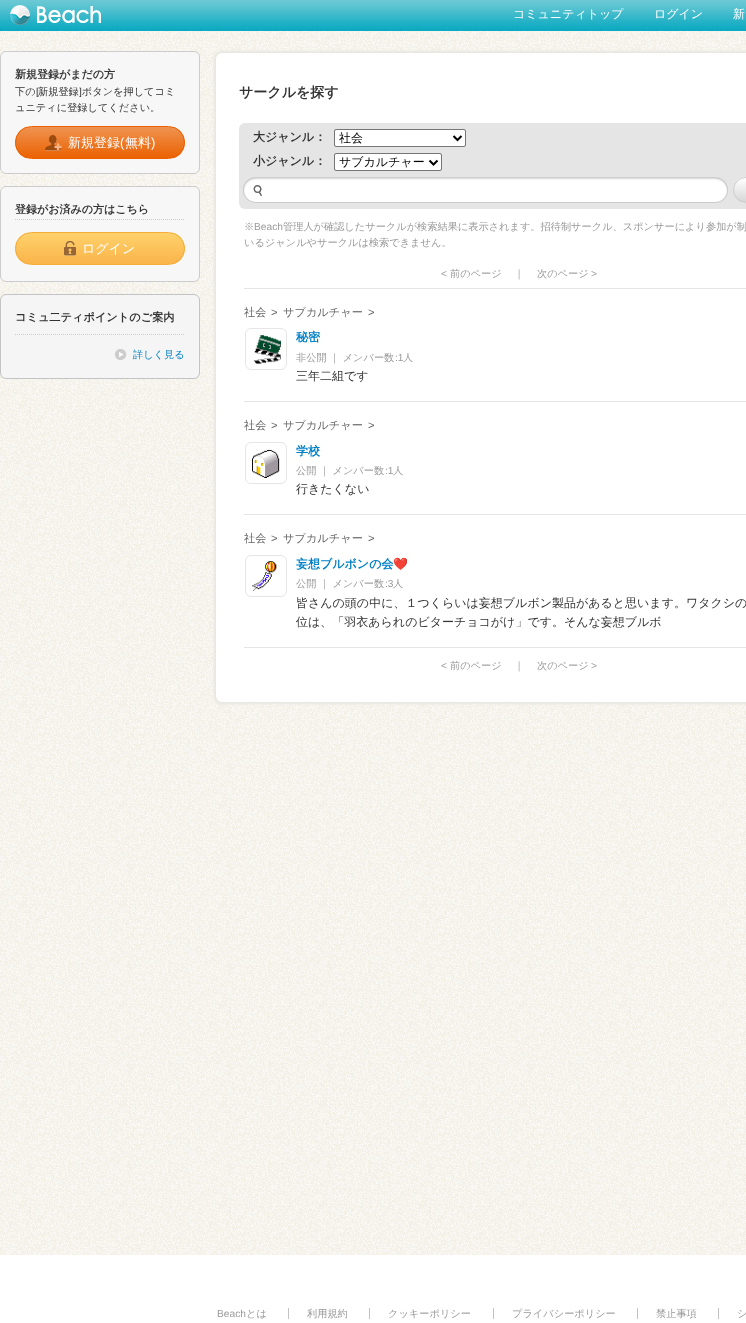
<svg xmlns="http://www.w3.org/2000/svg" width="746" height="1323">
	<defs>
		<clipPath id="clip1"><rect x="15" y="126" width="170" height="33" rx="16.5" /></clipPath>
		<linearGradient id="g1" gradientUnits="userSpaceOnUse" x1="100" y1="127" x2="100" y2="158"><stop offset="0" stop-color="#EF9350" /><stop offset="1" stop-color="#EB6202" /></linearGradient>
		<clipPath id="clip2"><rect x="15" y="232" width="170" height="33" rx="16.5" /></clipPath>
		<linearGradient id="g2" gradientUnits="userSpaceOnUse" x1="100" y1="233" x2="100" y2="264"><stop offset="0" stop-color="#FFD16B" /><stop offset="1" stop-color="#FAB44A" /></linearGradient>
		<clipPath id="clip3"><rect x="733" y="177" width="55" height="26" rx="13" /></clipPath>
		<linearGradient id="g3" gradientUnits="userSpaceOnUse" x1="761" y1="178" x2="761" y2="202"><stop offset="0" stop-color="#CCCCCC" stop-opacity="0" /><stop offset="1" stop-color="#CCCCCC" stop-opacity="0.8" /></linearGradient>
	</defs>
	<rect width="100%" height="100%" fill="#FFFFFF" />
	<image x="0" y="31" width="746" height="1224" href="assets/img1.png" />
	<image x="0" y="0" width="746" height="31" href="assets/img2.png" />
	<image x="10" y="5" width="91" height="20" href="assets/img3.png" />
	<g font-family="WenQuanYi Zen Hei" font-size="12" font-weight="500" fill="#FFFFFF">
		<text x="513" y="18">コミュニティトップ</text>
		<text x="654" y="18">ログイン</text>
		<text x="733" y="18">新</text>
	</g>
	<rect x="0.5" y="51.5" width="199" height="122" rx="5.5" fill="#F7F7F7" stroke="#CCCCCC" />
	<text x="15" y="78" font-family="WenQuanYi Zen Hei" font-size="11" font-weight="700" fill="#333333">新規登録がまだの方</text>
	<text x="15" y="95" font-family="WenQuanYi Zen Hei" font-size="10.2" font-weight="500" fill="#333333">下の</text>
	<text x="36" y="95" font-family="Liberation Sans" font-size="10.2" fill="#333333">[</text>
	<text x="38" y="95" font-family="WenQuanYi Zen Hei" font-size="10.2" font-weight="500" fill="#333333">新規登録 ボタンを押してコミ</text>
	<text x="79" y="95" font-family="Liberation Sans" font-size="10.2" fill="#333333">]</text>
	<text x="15" y="111" font-family="WenQuanYi Zen Hei" font-size="10.2" font-weight="500" fill="#333333">ュニティに登録してください。</text>
	<g clip-path="url(#clip1)">
		<rect x="15" y="127" width="170" height="31" fill="url(#g1)" />
	</g>
	<rect x="15.5" y="126.5" width="169" height="32" rx="16" fill="none" stroke="#EB6100" />
	<image x="45" y="135" width="17" height="16" href="assets/img4.png" />
	<text x="68" y="147" font-family="WenQuanYi Zen Hei" font-size="13" font-weight="500" fill="#FFFFFF">新規登録</text>
	<text x="120" y="147" font-family="Liberation Sans" font-size="13" fill="#FFFFFF">(</text>
	<text x="125" y="147" font-family="WenQuanYi Zen Hei" font-size="13" font-weight="500" fill="#FFFFFF">無料</text>
	<text x="151" y="147" font-family="Liberation Sans" font-size="13" fill="#FFFFFF">)</text>
	<rect x="0.5" y="186.5" width="199" height="95" rx="5.5" fill="#F7F7F7" stroke="#CCCCCC" />
	<text x="15" y="213" font-family="WenQuanYi Zen Hei" font-size="11" font-weight="700" fill="#333333">登録がお済みの方はこちら</text>
	<path d="M15 219.5H185" fill="none" stroke="#CCCCCC" stroke-dasharray="1 1" />
	<g clip-path="url(#clip2)">
		<rect x="15" y="233" width="170" height="31" fill="url(#g2)" />
	</g>
	<rect x="15.5" y="232.5" width="169" height="32" rx="16" fill="none" stroke="#F6AB3B" />
	<image x="64" y="241" width="12" height="15" href="assets/img5.png" />
	<text x="82" y="253" font-family="WenQuanYi Zen Hei" font-size="13" font-weight="500" fill="#FFFFFF">ログイン</text>
	<rect x="0.5" y="294.5" width="199" height="84" rx="5.5" fill="#F5F5F5" stroke="#C3C3C3" />
	<path d="M15 334.5H185" fill="none" stroke="#CCCCCC" stroke-dasharray="1 1" />
	<text x="15" y="321" font-family="WenQuanYi Zen Hei" font-size="11.2" font-weight="700" fill="#333333">コミュ二ティポイントのご案内</text>
	<image x="115" y="349" width="12" height="11" href="assets/img6.png" />
	<text x="133" y="358" font-family="WenQuanYi Zen Hei" font-size="10.2" font-weight="500" fill="#0080C6">詳しく見る</text>
	<rect x="214" y="51" width="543" height="653" rx="8" fill="#E7E6E1" filter="blur(1px)" />
	<rect x="216" y="53" width="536" height="649" rx="6" fill="#FFFFFF" />
	<text x="239" y="97" font-family="WenQuanYi Zen Hei" font-size="14" font-weight="700" fill="#333333">サークルを探す</text>
	<rect x="239" y="123" width="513" height="86" rx="6" fill="#E5E5E5" />
	<text x="253" y="141" font-family="WenQuanYi Zen Hei" font-size="12" font-weight="700" fill="#333333">大ジャンル：</text>
	<rect x="334.5" y="129.5" width="131" height="17" rx="1.5" fill="#FFFFFF" stroke="#767676" />
	<path d="M453.5 136L457.5 140L461.5 136" fill="none" stroke="#000000" stroke-width="2" />
	<text x="339" y="142" font-family="WenQuanYi Zen Hei" font-size="12" font-weight="500" fill="#000000">社会</text>
	<text x="253" y="165" font-family="WenQuanYi Zen Hei" font-size="12" font-weight="700" fill="#333333">小ジャンル：</text>
	<rect x="334.5" y="153.5" width="107" height="17" rx="1.5" fill="#FFFFFF" stroke="#767676" />
	<path d="M429.5 160.5L433.5 164.5L437.5 160.5" fill="none" stroke="#000000" stroke-width="2" />
	<text x="339" y="166" font-family="WenQuanYi Zen Hei" font-size="12" font-weight="500" fill="#000000">サブカルチャー</text>
	<image x="243" y="177" width="485" height="26" href="assets/img7.png" />
	<circle cx="746" cy="190" r="13" fill="#FFFFFF" />
	<g clip-path="url(#clip3)">
		<rect x="733" y="179" width="13" height="23" fill="url(#g3)" />
	</g>
	<rect x="733.5" y="177.5" width="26" height="25" rx="12.5" fill="none" stroke="#CCCCCC" />
	<text x="244" y="230" font-family="WenQuanYi Zen Hei" font-size="10.2" font-weight="500" fill="#999999">※</text>
	<text x="254" y="230" font-family="Liberation Sans" font-size="10.2" fill="#999999">Beach</text>
	<g font-family="WenQuanYi Zen Hei" font-size="10.2" font-weight="500" fill="#999999">
		<text x="283" y="230">管理人が確認したサークルが検索結果に表示されます。招待制サークル、スポンサーにより参加が制</text>
		<text x="244" y="246">いるジャンルやサークルは検索できません。</text>
	</g>
	<rect x="244" y="288" width="502" height="1" fill="#E5E5E5" />
	<text x="441" y="277" font-family="Liberation Sans" font-size="10.2" fill="#999999">&lt;</text>
	<g font-family="WenQuanYi Zen Hei" font-size="10.2" font-weight="500" fill="#999999">
		<text x="450" y="277">前のページ</text>
		<text x="514" y="277">｜</text>
		<text x="537" y="277">次のページ</text>
	</g>
	<text x="591" y="277" font-family="Liberation Sans" font-size="10.2" fill="#999999">&gt;</text>
	<rect x="244" y="401" width="502" height="1" fill="#E5E5E5" />
	<text x="244" y="316" font-family="WenQuanYi Zen Hei" font-size="11.2" font-weight="500" fill="#666666">社会</text>
	<text x="271" y="316" font-family="Liberation Sans" font-size="11.2" fill="#666666">&gt;</text>
	<text x="283" y="316" font-family="WenQuanYi Zen Hei" font-size="11.2" font-weight="500" fill="#666666">サブカルチャー</text>
	<text x="368" y="316" font-family="Liberation Sans" font-size="11.2" fill="#666666">&gt;</text>
	<rect x="245.5" y="328.5" width="41" height="41" rx="5.5" fill="none" stroke="#E6E6E6" />
	<image x="253" y="335" width="28" height="29" href="assets/img8.png" />
	<text x="296" y="341" font-family="WenQuanYi Zen Hei" font-size="12" font-weight="700" fill="#0080C6">秘密</text>
	<text x="296" y="361" font-family="WenQuanYi Zen Hei" font-size="10.2" font-weight="500" fill="#999999">非公開 ｜ メンバー数</text>
	<text x="395" y="361" font-family="Liberation Sans" font-size="10.2" fill="#999999">:1</text>
	<text x="403" y="361" font-family="WenQuanYi Zen Hei" font-size="10.2" font-weight="500" fill="#999999">人</text>
	<text x="296" y="380" font-family="WenQuanYi Zen Hei" font-size="12" font-weight="500" fill="#333333">三年二組です</text>
	<rect x="244" y="514" width="502" height="1" fill="#E5E5E5" />
	<text x="244" y="429" font-family="WenQuanYi Zen Hei" font-size="11.2" font-weight="500" fill="#666666">社会</text>
	<text x="271" y="429" font-family="Liberation Sans" font-size="11.2" fill="#666666">&gt;</text>
	<text x="283" y="429" font-family="WenQuanYi Zen Hei" font-size="11.2" font-weight="500" fill="#666666">サブカルチャー</text>
	<text x="368" y="429" font-family="Liberation Sans" font-size="11.2" fill="#666666">&gt;</text>
	<rect x="245.5" y="442.5" width="41" height="41" rx="5.5" fill="none" stroke="#E6E6E6" />
	<image x="252" y="449" width="28" height="29" href="assets/img9.png" />
	<text x="296" y="455" font-family="WenQuanYi Zen Hei" font-size="12" font-weight="700" fill="#0080C6">学校</text>
	<text x="296" y="474" font-family="WenQuanYi Zen Hei" font-size="10.2" font-weight="500" fill="#999999">公開 ｜ メンバー数</text>
	<text x="385" y="474" font-family="Liberation Sans" font-size="10.2" fill="#999999">:1</text>
	<text x="393" y="474" font-family="WenQuanYi Zen Hei" font-size="10.2" font-weight="500" fill="#999999">人</text>
	<text x="296" y="493" font-family="WenQuanYi Zen Hei" font-size="12" font-weight="500" fill="#333333">行きたくない</text>
	<rect x="244" y="647" width="502" height="1" fill="#E5E5E5" />
	<text x="244" y="542" font-family="WenQuanYi Zen Hei" font-size="11.2" font-weight="500" fill="#666666">社会</text>
	<text x="271" y="542" font-family="Liberation Sans" font-size="11.2" fill="#666666">&gt;</text>
	<text x="283" y="542" font-family="WenQuanYi Zen Hei" font-size="11.2" font-weight="500" fill="#666666">サブカルチャー</text>
	<text x="368" y="542" font-family="Liberation Sans" font-size="11.2" fill="#666666">&gt;</text>
	<rect x="245.5" y="555.5" width="41" height="41" rx="5.5" fill="none" stroke="#E6E6E6" />
	<image x="252" y="561" width="25" height="30" href="assets/img10.png" />
	<text x="296" y="568" font-family="WenQuanYi Zen Hei" font-size="12" font-weight="700" fill="#0080C6">妄想ブルボンの会</text>
	<text x="393" y="568" font-family="Noto Color Emoji" font-size="12" font-weight="700" fill="#0080C6">❤️</text>
	<text x="296" y="587" font-family="WenQuanYi Zen Hei" font-size="10.2" font-weight="500" fill="#999999">公開 ｜ メンバー数</text>
	<text x="385" y="587" font-family="Liberation Sans" font-size="10.2" fill="#999999">:3</text>
	<text x="393" y="587" font-family="WenQuanYi Zen Hei" font-size="10.2" font-weight="500" fill="#999999">人</text>
	<g font-family="WenQuanYi Zen Hei" font-size="12" font-weight="500" fill="#333333">
		<text x="296" y="607">皆さんの頭の中に、１つくらいは妄想ブルボン製品があると思います。ワタクシの</text>
		<text x="296" y="626">位は、「羽衣あられのビターチョコがけ」です。そんな妄想ブルボ</text>
	</g>
	<text x="441" y="669" font-family="Liberation Sans" font-size="10.2" fill="#999999">&lt;</text>
	<g font-family="WenQuanYi Zen Hei" font-size="10.2" font-weight="500" fill="#999999">
		<text x="450" y="669">前のページ</text>
		<text x="514" y="669">｜</text>
		<text x="537" y="669">次のページ</text>
	</g>
	<g font-family="Liberation Sans" font-size="10.2" fill="#999999">
		<text x="591" y="669">&gt;</text>
		<text x="217" y="1317">Beach</text>
	</g>
	<g font-family="WenQuanYi Zen Hei" font-size="10.2" font-weight="500" fill="#999999">
		<text x="246" y="1317">とは</text>
		<text x="307" y="1317">利用規約</text>
	</g>
	<rect x="288" y="1308" width="1" height="11" fill="#C3C3C3" />
	<text x="388" y="1317" font-family="WenQuanYi Zen Hei" font-size="10.2" font-weight="500" fill="#999999">クッキーポリシー</text>
	<rect x="369" y="1308" width="1" height="11" fill="#C3C3C3" />
	<text x="512" y="1317" font-family="WenQuanYi Zen Hei" font-size="10.2" font-weight="500" fill="#999999">プライバシーポリシー</text>
	<rect x="493" y="1308" width="1" height="11" fill="#C3C3C3" />
	<text x="656" y="1317" font-family="WenQuanYi Zen Hei" font-size="10.2" font-weight="500" fill="#999999">禁止事項</text>
	<rect x="637" y="1308" width="1" height="11" fill="#C3C3C3" />
	<text x="737" y="1317" font-family="WenQuanYi Zen Hei" font-size="10.2" font-weight="500" fill="#999999">シ</text>
	<rect x="718" y="1308" width="1" height="11" fill="#C3C3C3" />
</svg>
